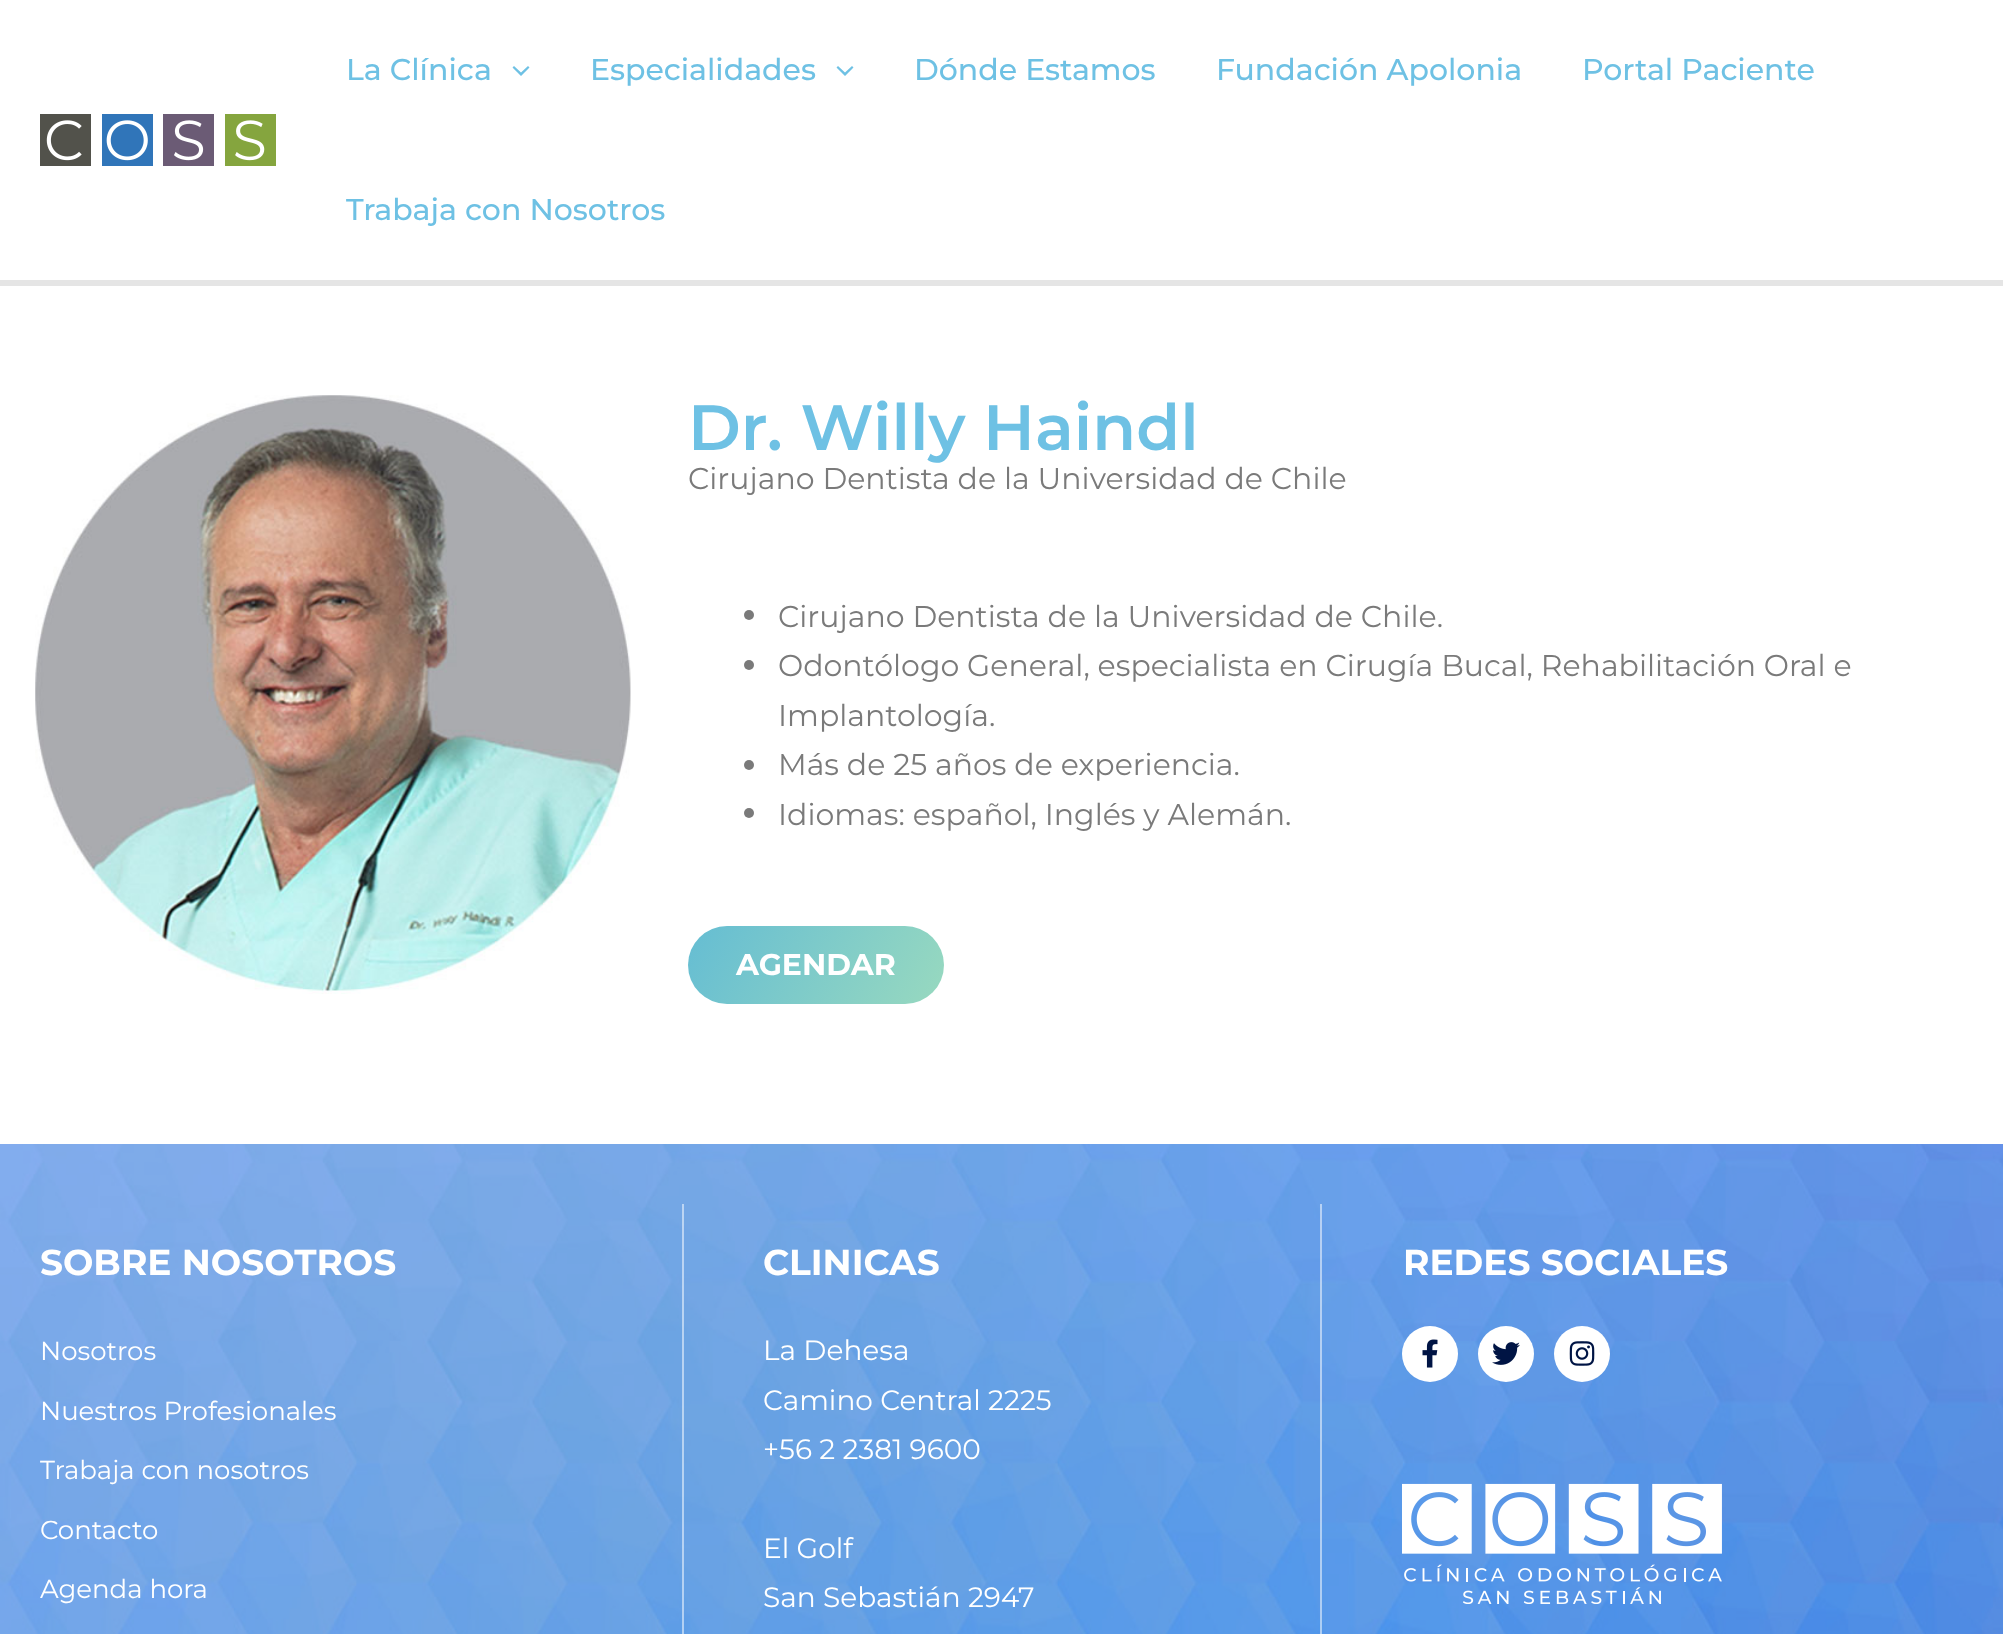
<svg xmlns="http://www.w3.org/2000/svg" width="2003" height="1634">
	<defs>
		<linearGradient id="g1" gradientUnits="userSpaceOnUse" x1="929" y1="1030" x2="703" y2="900"><stop offset="0" stop-color="#98D9BF" /><stop offset="1" stop-color="#65BDD3" /></linearGradient>
	</defs>
	<rect width="100%" height="100%" fill="#FFFFFF" />
	<rect x="0" y="280" width="2003" height="6" fill="#E5E5E5" />
	<image x="40" y="114" width="236" height="52" href="assets/img1.png" />
	<text x="346" y="80" font-family="Montserrat" font-size="30" font-weight="500" fill="#6EC1E4">La Clínica</text>
	<path d="M512.5 67.5L521 76L529.5 67.5L528 66L521 72.5L514 66Z" fill="#6EC1E4" />
	<text x="590" y="80" font-family="Montserrat" font-size="30" font-weight="500" fill="#6EC1E4">Especialidades</text>
	<path d="M836.5 67.5L845 76L853.5 67.5L852 66L845 72.5L838 66Z" fill="#6EC1E4" />
	<g font-family="Montserrat" font-size="30" font-weight="500" fill="#6EC1E4">
		<text x="914" y="80">Dónde Estamos</text>
		<text x="1216" y="80">Fundación Apolonia</text>
		<text x="1582" y="80">Portal Paciente</text>
		<text x="346" y="220">Trabaja con Nosotros</text>
	</g>
	<image x="35" y="395" width="596" height="599" href="assets/img2.png" />
	<text x="688" y="450" font-family="Montserrat" font-size="64" font-weight="600" fill="#6EC1E4">Dr. Willy Haindl</text>
	<text x="688" y="489" font-family="Montserrat" font-size="30" fill="#7A7A7A">Cirujano Dentista de la Universidad de Chile</text>
	<circle cx="749" cy="615" r="5" fill="#7A7A7A" />
	<text x="778" y="627" font-family="Montserrat" font-size="30" fill="#7A7A7A">Cirujano Dentista de la Universidad de Chile.</text>
	<circle cx="749" cy="665" r="5" fill="#7A7A7A" />
	<g font-family="Montserrat" font-size="30" fill="#7A7A7A">
		<text x="778" y="676">Odontólogo General, especialista en Cirugía Bucal, Rehabilitación Oral e</text>
		<text x="778" y="726">Implantología.</text>
	</g>
	<circle cx="749" cy="765" r="5" fill="#7A7A7A" />
	<text x="778" y="775" font-family="Montserrat" font-size="30" fill="#7A7A7A">Más de 25 años de experiencia.</text>
	<circle cx="749" cy="813" r="5" fill="#7A7A7A" />
	<text x="778" y="825" font-family="Montserrat" font-size="30" fill="#7A7A7A">Idiomas: español, Inglés y Alemán.</text>
	<rect x="688" y="926" width="256" height="78" rx="39" fill="url(#g1)" />
	<text x="736" y="975" font-family="Montserrat" font-size="30" font-weight="700" fill="#FFFFFF">AGENDAR</text>
	<image x="0" y="1144" width="2003" height="490" href="assets/img3.png" />
	<text x="40" y="1275" font-family="Montserrat" font-size="36" font-weight="700" fill="#FFFFFF">SOBRE NOSOTROS</text>
	<g font-family="Montserrat" font-size="26" fill="#FFFFFF">
		<text x="40" y="1360">Nosotros</text>
		<text x="40" y="1420">Nuestros Profesionales</text>
		<text x="40" y="1479">Trabaja con nosotros</text>
		<text x="40" y="1539">Contacto</text>
		<text x="40" y="1598">Agenda hora</text>
	</g>
	<rect x="1320" y="1204" width="2" height="430" fill="#FFFFFF" fill-opacity="0.52" />
	<rect x="682" y="1204" width="2" height="430" fill="#FFFFFF" fill-opacity="0.52" />
	<text x="763" y="1275" font-family="Montserrat" font-size="36" font-weight="700" fill="#FFFFFF">CLINICAS</text>
	<g font-family="Montserrat" font-size="28" fill="#FFFFFF">
		<text x="763" y="1360">La Dehesa</text>
		<text x="763" y="1410">Camino Central 2225</text>
		<text x="763" y="1459">+56 2 2381 9600</text>
		<text x="763" y="1558">El Golf</text>
		<text x="763" y="1607">San Sebastián 2947</text>
	</g>
	<text x="1403" y="1275" font-family="Montserrat" font-size="36" font-weight="700" fill="#FFFFFF">REDES SOCIALES</text>
	<circle cx="1430" cy="1354" r="28" fill="#FFFFFF" />
	<image x="1422" y="1339" width="16" height="29" href="assets/img4.png" />
	<circle cx="1506" cy="1354" r="28" fill="#FFFFFF" />
	<image x="1492" y="1342" width="28" height="23" href="assets/img5.png" />
	<circle cx="1582" cy="1354" r="28" fill="#FFFFFF" />
	<image x="1569" y="1341" width="26" height="25" href="assets/img6.png" />
	<image x="1402" y="1483" width="320" height="121" href="assets/img7.png" />
</svg>
